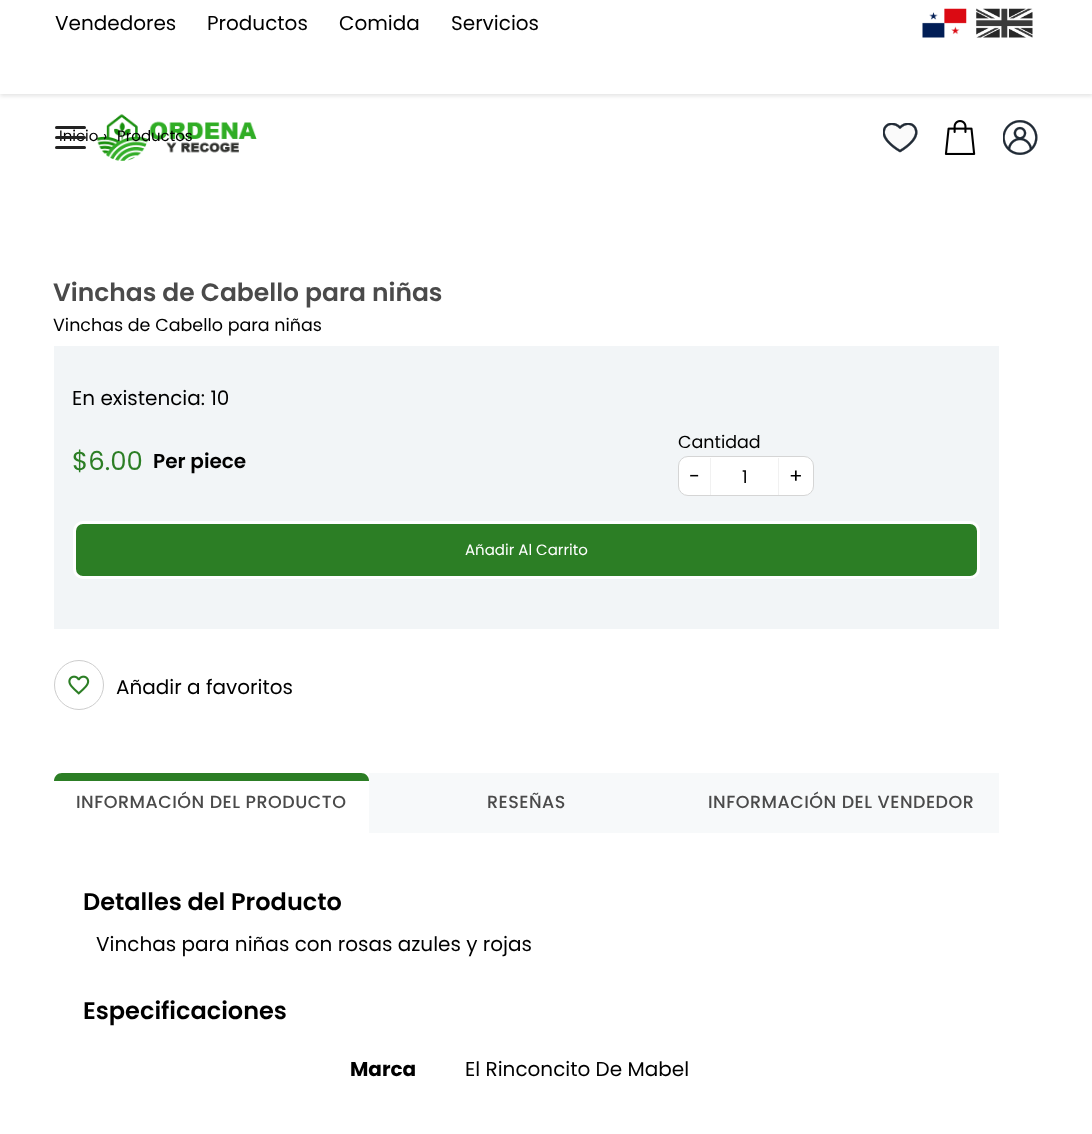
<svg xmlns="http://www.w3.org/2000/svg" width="1092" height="1134">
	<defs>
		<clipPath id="clip1"><path d="M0 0H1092V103H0ZM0 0H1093V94H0Z" clip-rule="evenodd" /></clipPath>
	</defs>
	<rect width="100%" height="100%" fill="#FFFFFF" />
	<g clip-path="url(#clip1)">
		<rect x="0" y="3" width="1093" height="93" fill="#000000" fill-opacity="0.11" filter="blur(2px)" />
	</g>
	<g font-family="Poppins" font-size="20" fill="#000000">
		<text x="55" y="30">Vendedores</text>
		<text x="207" y="30">Productos</text>
		<text x="339" y="30">Comida</text>
		<text x="451" y="30">Servicios</text>
	</g>
	<image x="922" y="8" width="45" height="30" href="assets/img1.png" />
	<image x="976" y="8" width="57" height="30" href="assets/img2.png" />
	<rect x="55" y="126" width="31" height="3" rx="1.5" fill="#222222" />
	<image x="96" y="114" width="161" height="47" href="assets/img3.png" />
	<text x="59" y="141" font-family="Poppins" font-size="15" fill="#000000">Inicio</text>
	<rect x="55" y="136" width="31" height="3" rx="1.5" fill="#222222" />
	<rect x="55" y="146" width="31" height="3" rx="1.5" fill="#222222" />
	<image x="883" y="123" width="35" height="30" href="assets/img4.png" />
	<image x="944" y="120" width="32" height="35" href="assets/img5.png" />
	<image x="1003" y="120" width="35" height="35" href="assets/img6.png" />
	<g font-family="Poppins" font-size="15" fill="#000000">
		<text x="103" y="141">›</text>
		<text x="117" y="141">Productos</text>
	</g>
	<text x="53" y="301" font-family="Poppins" font-size="25" font-weight="600" fill="#4A4A4A">Vinchas de Cabello para niñas</text>
	<text x="53" y="331" font-family="Poppins" font-size="17.5" fill="#000000">Vinchas de Cabello para niñas</text>
	<rect x="54" y="346" width="945" height="283" fill="#F2F5F7" />
	<text x="72" y="405" font-family="Poppins" font-size="20" fill="#000000">En existencia: 10</text>
	<text x="72" y="470" font-family="Poppins" font-size="26" fill="#2C7E25">$6.00</text>
	<text x="153" y="468" font-family="Poppins" font-size="20" font-weight="600" fill="#000000">Per piece</text>
	<text x="678" y="448" font-family="Poppins" font-size="17.5" fill="#000000">Cantidad</text>
	<rect x="678.5" y="456.5" width="135" height="39" rx="9.5" fill="#FFFFFF" stroke="#D5D5D5" />
	<rect x="710" y="458" width="1" height="37" fill="#F1F1F1" />
	<text x="689" y="483" font-family="Poppins" font-size="20" fill="#000000">-</text>
	<text x="742" y="483" font-family="Poppins" font-size="17.5" fill="#000000">1</text>
	<rect x="778" y="458" width="1" height="37" fill="#F1F1F1" />
	<text x="789" y="483" font-family="Poppins" font-size="20" fill="#000000">+</text>
	<rect x="74.5" y="522.5" width="904" height="55" rx="8.5" fill="#2C7E25" stroke="#FFFFFF" stroke-width="3" />
	<text x="465" y="555" font-family="Poppins" font-size="15" fill="#FFFFFF">Añadir Al Carrito</text>
	<circle cx="79" cy="685" r="24.5" fill="none" stroke="#CDCDCD" />
	<image x="68" y="675" width="22" height="20" href="assets/img7.png" />
	<text x="116" y="694" font-family="Poppins" font-size="20" fill="#000000">Añadir a favoritos</text>
	<rect x="369" y="773" width="630" height="60" fill="#F7F9FA" />
	<path d="M62 773H361C365.5 773 369 776.5 369 781H54C54 776.5 57.5 773 62 773Z" fill="#2C7E25" />
	<g font-family="Poppins" font-size="17.5" font-weight="500" letter-spacing="0.5" fill="#4A4A4A">
		<text x="76" y="808">INFORMACIÓN DEL PRODUCTO</text>
		<text x="487" y="808">RESEÑAS</text>
		<text x="708" y="808">INFORMACIÓN DEL VENDEDOR</text>
	</g>
	<text x="83" y="910" font-family="Poppins" font-size="24" font-weight="600" fill="#000000">Detalles del Producto</text>
	<text x="96" y="951" font-family="Poppins" font-size="20" fill="#000000">Vinchas para niñas con rosas azules y rojas</text>
	<text x="83" y="1019" font-family="Poppins" font-size="24" font-weight="600" fill="#000000">Especificaciones</text>
	<text x="350" y="1076" font-family="Poppins" font-size="20" font-weight="700" fill="#000000">Marca</text>
	<text x="465" y="1076" font-family="Poppins" font-size="20" fill="#000000">El Rinconcito De Mabel</text>
</svg>
